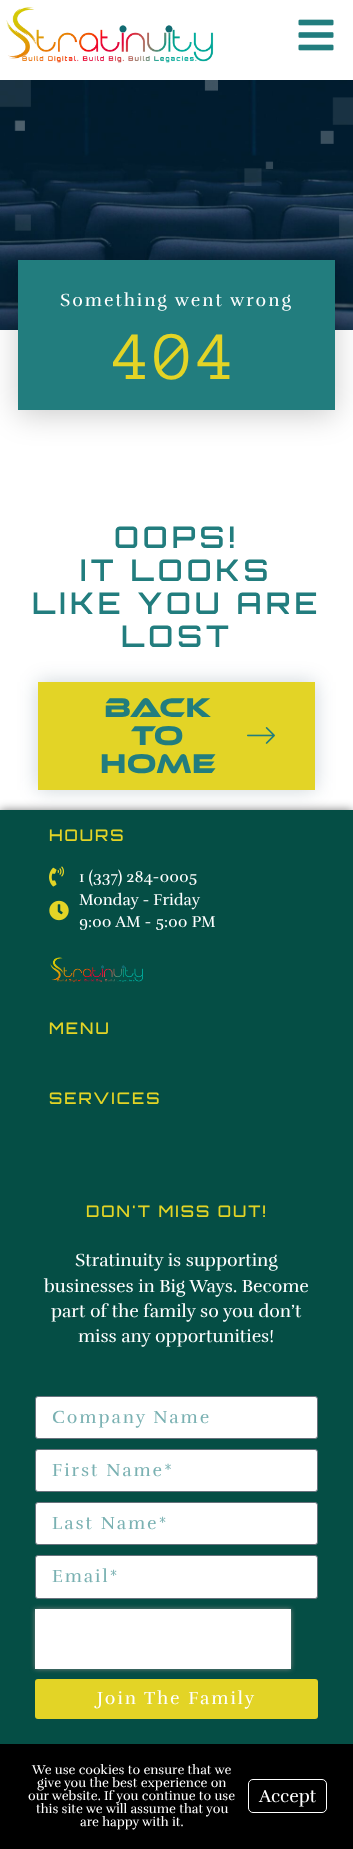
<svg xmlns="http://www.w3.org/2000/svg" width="353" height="1849">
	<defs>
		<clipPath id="clip1"><path d="M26 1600H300V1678H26ZM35 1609H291V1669H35Z" clip-rule="evenodd" /></clipPath>
	</defs>
	<rect width="100%" height="100%" fill="#FFFFFF" />
	<image x="6" y="7" width="208" height="56" href="assets/img1.png" />
	<image x="298" y="19" width="36" height="32" href="assets/img2.png" />
	<image x="0" y="80" width="353" height="250" href="assets/img3.png" />
	<image x="0" y="80" width="353" height="158" href="assets/img4.png" />
	<rect x="18" y="265" width="317" height="150" fill="#000000" fill-opacity="0.2" filter="blur(15px)" />
	<rect x="18" y="260" width="317" height="150" fill="#227D7E" />
	<text x="60" y="306" font-family="Rufina" font-size="18" letter-spacing="2" fill="#FFFFFF">Something went wrong</text>
	<text x="113" y="379" font-family="Anonymous Pro" font-size="70" letter-spacing="4" fill="#E3D426">404</text>
	<g font-family="Orbitron" font-size="30" font-weight="600" letter-spacing="4" fill="#227D7E">
		<text x="114" y="548">OOPS!</text>
		<text x="80" y="581">IT LOOKS</text>
		<text x="32" y="614">LIKE YOU ARE</text>
		<text x="121" y="647">LOST</text>
	</g>
	<rect x="38" y="682" width="277" height="108" fill="#022940" fill-opacity="0.2" filter="blur(10px)" />
	<rect x="38" y="682" width="277" height="108" fill="#E3D426" />
	<g font-family="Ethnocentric" font-size="28" letter-spacing="0.5" fill="#227D7E">
		<text x="104" y="717">Back</text>
		<text x="131" y="745">to</text>
		<text x="100" y="773">Home</text>
	</g>
	<image x="247" y="727" width="28" height="17" href="assets/img5.png" />
	<rect x="0" y="810" width="353" height="965" fill="#000000" fill-opacity="0.5" filter="blur(5px)" />
	<rect x="0" y="810" width="353" height="934" fill="#054E45" />
	<text x="49" y="841" font-family="Orbitron" font-size="16" font-weight="500" letter-spacing="2" fill="#E3D426">HOURS</text>
	<image x="49" y="866" width="15" height="21" href="assets/img6.png" />
	<text x="79" y="882" font-family="Rufina" font-size="16" fill="#FFFFFF">1 (337) 284-0005</text>
	<image x="49" y="900" width="20" height="21" href="assets/img7.png" />
	<g font-family="Rufina" font-size="16" fill="#FFFFFF">
		<text x="79" y="905">Monday - Friday</text>
		<text x="79" y="927">9:00 AM - 5:00 PM</text>
	</g>
	<image x="50" y="957" width="93" height="26" href="assets/img8.png" />
	<g font-family="Orbitron" font-size="16" font-weight="500" letter-spacing="2" fill="#E3D426">
		<text x="49" y="1034">MENU</text>
		<text x="49" y="1104">SERVICES</text>
		<text x="86" y="1217">DON'T MISS OUT!</text>
	</g>
	<g font-family="Rufina" font-size="18" fill="#FFFFFF">
		<text x="75" y="1266">Stratinuity is supporting</text>
		<text x="44" y="1292">businesses in Big Ways. Become</text>
		<text x="51" y="1317">part of the family so you don’t</text>
		<text x="78" y="1342">miss any opportunities!</text>
	</g>
	<rect x="35.5" y="1396.5" width="282" height="42" rx="2.5" fill="#FFFFFF" stroke="#69727D" />
	<text x="52" y="1423" font-family="Rufina" font-size="18" letter-spacing="2" fill="#7AB1B2">Company Name</text>
	<rect x="35.5" y="1449.5" width="282" height="42" rx="2.5" fill="#FFFFFF" stroke="#69727D" />
	<text x="52" y="1476" font-family="Rufina" font-size="18" letter-spacing="2" fill="#7AB1B2">First Name*</text>
	<rect x="35.5" y="1502.5" width="282" height="42" rx="2.5" fill="#FFFFFF" stroke="#69727D" />
	<text x="52" y="1529" font-family="Rufina" font-size="18" letter-spacing="2" fill="#7AB1B2">Last Name*</text>
	<rect x="35.5" y="1555.5" width="282" height="43" rx="2.5" fill="#FFFFFF" stroke="#69727D" />
	<text x="52" y="1582" font-family="Rufina" font-size="18" letter-spacing="2" fill="#7AB1B2">Email*</text>
	<rect x="35" y="1609" width="256" height="60" fill="#FFFFFF" />
	<g clip-path="url(#clip1)">
		<rect x="35" y="1609" width="256" height="60" fill="#808080" filter="blur(2.5px)" />
	</g>
	<rect x="35" y="1679" width="283" height="40" rx="3" fill="#E3D426" />
	<text x="97" y="1704" font-family="Rufina" font-size="18" letter-spacing="2" fill="#FFFFFF">Join The Family</text>
	<rect x="0" y="1744" width="353" height="105" fill="#000000" />
	<g font-family="Rufina" font-size="13" fill="#FFFFFF">
		<text x="32" y="1774">We use cookies to ensure that we</text>
		<text x="37" y="1787">give you the best experience on</text>
		<text x="28" y="1800">our website. If you continue to use</text>
		<text x="36" y="1813">this site we will assume that you</text>
		<text x="80" y="1826">are happy with it.</text>
	</g>
	<rect x="248.5" y="1779.5" width="78" height="33" rx="4.5" fill="none" stroke="#FFFFFF" />
	<text x="259" y="1802" font-family="Rufina" font-size="18" fill="#FFFFFF">Accept</text>
</svg>
